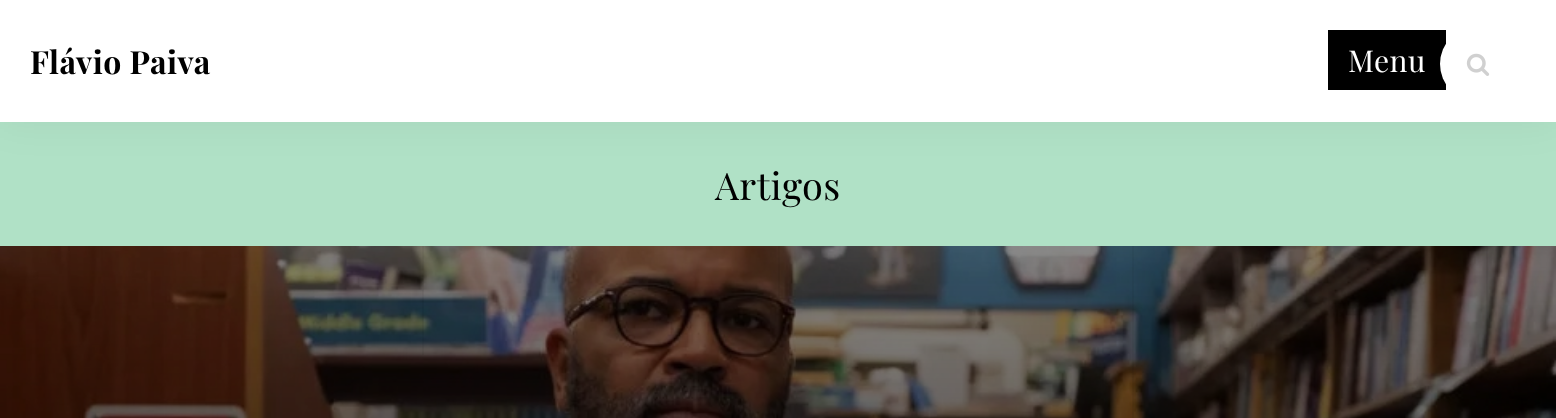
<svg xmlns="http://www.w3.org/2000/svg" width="1556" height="418">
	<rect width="100%" height="100%" fill="#FFFFFF" />
	<rect x="0" y="122" width="1556" height="124" fill="#B0E1C6" />
	<rect x="0" y="0" width="1556" height="122" fill="#000000" fill-opacity="0.05" filter="blur(20px)" />
	<rect x="0" y="0" width="1556" height="122" fill="#FFFFFF" />
	<text x="30" y="74" font-family="Playfair Display" font-size="32" font-weight="700" letter-spacing="0.4" fill="#000000">Flávio Paiva</text>
	<rect x="1328" y="30" width="118" height="60" fill="#000000" />
	<text x="1348" y="72" font-family="Playfair Display" font-size="30" letter-spacing="0.4" fill="#FFFFFF">Menu</text>
	<circle cx="1478" cy="64" r="38" fill="#FFFFFF" />
	<image x="1466" y="53" width="24" height="23" href="assets/img1.png" />
	<text x="715" y="200" font-family="Playfair Display" font-size="38" letter-spacing="0.4" fill="#000000">Artigos</text>
	<image x="0" y="246" width="1556" height="172" href="assets/img2.png" />
	<rect x="68" y="246" width="2" height="5" fill="#000000" fill-opacity="0.04" />
	<rect x="422" y="246" width="2" height="109" fill="#000000" fill-opacity="0.04" />
	<rect x="778" y="246" width="2" height="52" fill="#000000" fill-opacity="0.04" />
	<rect x="1486" y="246" width="2" height="117" fill="#000000" fill-opacity="0.04" />
	<rect x="1132" y="246" width="2" height="172" fill="#000000" fill-opacity="0.04" />
</svg>
